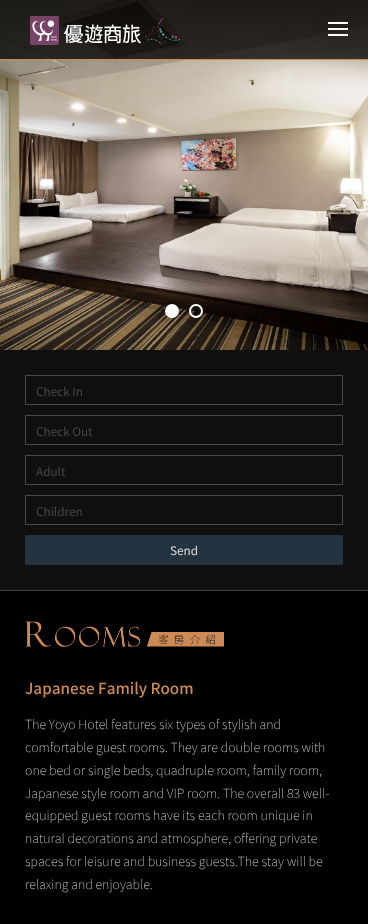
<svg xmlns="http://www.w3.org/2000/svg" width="368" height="924">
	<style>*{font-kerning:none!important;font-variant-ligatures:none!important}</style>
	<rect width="100%" height="100%" fill="#000000" />
	<image x="0" y="0" width="368" height="350" href="assets/img2.png" />
	<rect x="0" y="0" width="368" height="59" fill="#000000" fill-opacity="0.75" />
	<rect x="0" y="59" width="368" height="1" fill="#CC8A55" />
	<image x="30" y="16" width="150" height="29" href="assets/img1.png" />
	<rect x="328" y="22" width="20" height="2" fill="#FFFFFF" />
	<rect x="328" y="28" width="20" height="2" fill="#FFFFFF" />
	<rect x="328" y="34" width="20" height="2" fill="#FFFFFF" />
	<circle cx="172" cy="311" r="6" fill="#FFFFFF" stroke="#FFFFFF" stroke-width="2" />
	<circle cx="196" cy="311" r="6" fill="none" stroke="#FFFFFF" stroke-width="2" />
	<rect x="0" y="590" width="368" height="1" fill="#443D37" />
	<rect x="0" y="350" width="368" height="240" fill="#0F0F0F" />
	<rect x="25.5" y="375.5" width="317" height="29" fill="none" stroke="#484848" />
	<text x="36" y="396" font-family="Noto Sans TC" font-size="11.75" fill="#484848">Check In</text>
	<rect x="25.5" y="415.5" width="317" height="29" fill="none" stroke="#484848" />
	<text x="36" y="436" font-family="Noto Sans TC" font-size="11.75" fill="#484848">Check Out</text>
	<rect x="25.5" y="455.5" width="317" height="29" fill="none" stroke="#484848" />
	<text x="36" y="476" font-family="Noto Sans TC" font-size="11.75" fill="#484848">Adult</text>
	<rect x="25.5" y="495.5" width="317" height="29" fill="none" stroke="#484848" />
	<text x="36" y="516" font-family="Noto Sans TC" font-size="11.75" fill="#484848">Children</text>
	<rect x="25" y="535" width="318" height="30" fill="#243340" />
	<text x="170" y="555" font-family="Noto Sans TC" font-size="11.75" fill="#DDDDDD">Send</text>
	<image x="25" y="621" width="199" height="26" href="assets/img3.png" />
	<text x="25" y="694" font-family="Noto Sans TC" font-size="15.25" font-weight="500" fill="#CC8A55">Japanese Family Room</text>
	<g font-family="Noto Sans TC" font-size="12.6" font-weight="100" fill="#DDDDDD">
		<text x="25" y="729">The Yoyo Hotel features six types of stylish and</text>
		<text x="25" y="752">comfortable guest rooms. They are double rooms with</text>
		<text x="25" y="775">one bed or single beds, quadruple room, family room,</text>
		<text x="25" y="798">Japanese style room and VIP room. The overall 83 well-</text>
		<text x="25" y="820">equipped guest rooms have its each room unique in</text>
		<text x="25" y="843">natural decorations and atmosphere, offering private</text>
		<text x="25" y="866">spaces for leisure and business guests.The stay</text>
		<text x="287" y="866">will be</text>
		<text x="25" y="889">relaxing and enjoyable.</text>
	</g>
</svg>
